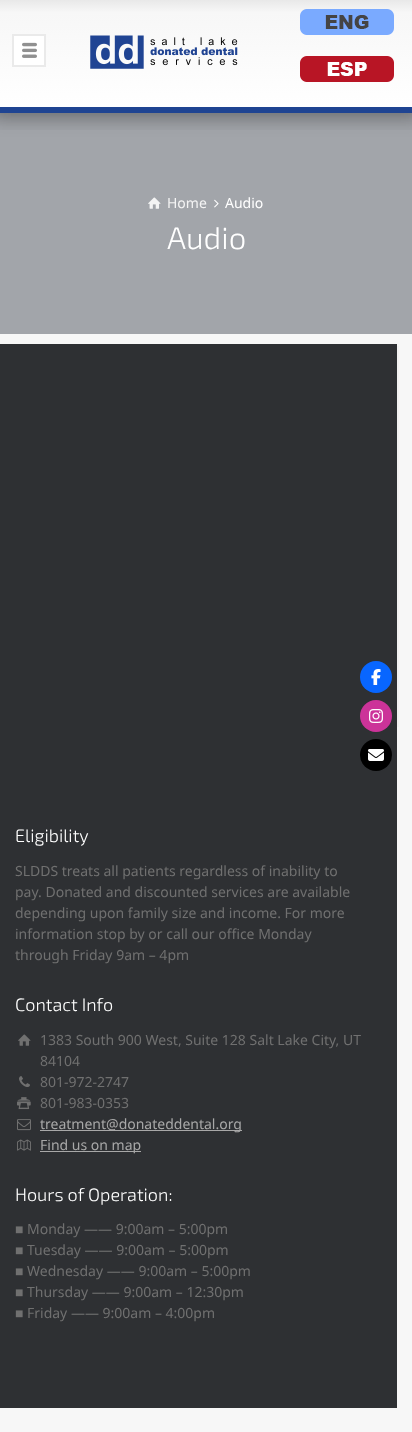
<svg xmlns="http://www.w3.org/2000/svg" width="412" height="1432">
	<defs>
		<linearGradient id="g1" gradientUnits="userSpaceOnUse" x1="206" y1="-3" x2="206" y2="107"><stop offset="0.01" stop-color="#FFFFFF" /><stop offset="0.01" stop-color="#E6E6E6" /><stop offset="0.14" stop-color="#F7F7F7" /><stop offset="1" stop-color="#FFFFFF" /></linearGradient>
		<clipPath id="clip1"><rect x="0" y="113" width="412" height="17" /></clipPath>
	</defs>
	<rect width="100%" height="100%" fill="#A2A5AA" />
	<rect x="-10" y="-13" width="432" height="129" fill="#000000" fill-opacity="0.2" filter="blur(10px)" />
	<rect x="0" y="0" width="412" height="107" fill="url(#g1)" />
	<g clip-path="url(#clip1)">
		<rect x="-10" y="-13" width="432" height="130" fill="#000000" fill-opacity="0.2" filter="blur(10px)" />
	</g>
	<image x="90" y="35" width="148" height="34" href="assets/img1.png" />
	<rect x="0" y="107" width="412" height="6" fill="#1F4492" />
	<rect x="13" y="35" width="32" height="31" fill="#FFFFFF" stroke="#EAEAEA" stroke-width="2" />
	<image x="22" y="42" width="15" height="16" href="assets/img2.png" />
	<image x="300" y="9" width="94" height="26" href="assets/img3.png" />
	<image x="300" y="56" width="94" height="26" href="assets/img4.png" />
	<image x="148" y="197" width="13" height="12" href="assets/img5.png" />
	<text x="167" y="208" font-family="Noto Sans" font-size="14" fill="#F4F4F4">Home</text>
	<image x="214" y="199" width="5" height="9" href="assets/img6.png" />
	<text x="225" y="208" font-family="Noto Sans" font-size="14" fill="#FFFFFF">Audio</text>
	<text x="167" y="249" font-family="'Exo 2'" font-size="31" font-weight="300" fill="#FFFFFF">Audio</text>
	<rect x="0" y="334" width="412" height="1098" fill="#F7F7F7" />
	<path d="M17 725V727H399V346H397V725Z" fill="#F2F2F2" />
	<rect x="0" y="344" width="397" height="1064" fill="#2E3033" />
	<circle cx="376" cy="677" r="16" fill="#0866FF" />
	<image x="371" y="669" width="10" height="16" href="assets/img7.png" />
	<circle cx="376" cy="716" r="16" fill="#CC3399" />
	<image x="369" y="709" width="14" height="14" href="assets/img8.png" />
	<circle cx="376" cy="755" r="16" fill="#000000" />
	<image x="368" y="749" width="16" height="12" href="assets/img9.png" />
	<text x="15" y="842" font-family="'Exo 2'" font-size="18" font-weight="300" fill="#FFFFFF">Eligibility</text>
	<g font-family="Noto Sans" font-size="14" fill="#707070">
		<text x="15" y="876">SLDDS treats all patients regardless of inability to</text>
		<text x="15" y="897">pay. Donated and discounted services are available</text>
		<text x="15" y="918">depending upon family size and income. For more</text>
		<text x="15" y="939">information stop by or call our office Monday</text>
		<text x="15" y="960">through Friday 9am – 4pm</text>
	</g>
	<text x="15" y="1011" font-family="'Exo 2'" font-size="18" font-weight="300" fill="#FFFFFF">Contact Info</text>
	<image x="18" y="1034" width="13" height="12" href="assets/img10.png" />
	<g font-family="Noto Sans" font-size="14" fill="#707070">
		<text x="40" y="1045">1383 South 900 West, Suite 128 Salt Lake City, UT</text>
		<text x="40" y="1066">84104</text>
	</g>
	<image x="19" y="1076" width="11" height="11" href="assets/img11.png" />
	<text x="40" y="1087" font-family="Noto Sans" font-size="14" fill="#707070">801-972-2747</text>
	<image x="17" y="1097" width="14" height="13" href="assets/img12.png" />
	<text x="40" y="1108" font-family="Noto Sans" font-size="14" fill="#707070">801-983-0353</text>
	<image x="17" y="1119" width="14" height="12" href="assets/img13.png" />
	<rect x="40" y="1130" width="202" height="1" fill="#A8A8A8" />
	<text x="40" y="1129" font-family="Noto Sans" font-size="14" fill="#A8A8A8">treatment@donateddental.org</text>
	<image x="17" y="1139" width="14" height="12" href="assets/img14.png" />
	<rect x="40" y="1151" width="101" height="1" fill="#A8A8A8" />
	<text x="40" y="1150" font-family="Noto Sans" font-size="14" fill="#A8A8A8">Find us on map</text>
	<text x="15" y="1201" font-family="'Exo 2'" font-size="18" font-weight="300" fill="#FFFFFF">Hours of Operation:</text>
	<text x="15" y="1234" font-family="Liberation Serif" font-size="14" fill="#707070">■</text>
	<text x="27" y="1234" font-family="Noto Sans" font-size="14" fill="#707070">Monday —— 9:00am – 5:00pm</text>
	<text x="15" y="1255" font-family="Liberation Serif" font-size="14" fill="#707070">■</text>
	<text x="27" y="1255" font-family="Noto Sans" font-size="14" fill="#707070">Tuesday —— 9:00am – 5:00pm</text>
	<text x="15" y="1276" font-family="Liberation Serif" font-size="14" fill="#707070">■</text>
	<text x="27" y="1276" font-family="Noto Sans" font-size="14" fill="#707070">Wednesday —— 9:00am – 5:00pm</text>
	<text x="15" y="1297" font-family="Liberation Serif" font-size="14" fill="#707070">■</text>
	<text x="27" y="1297" font-family="Noto Sans" font-size="14" fill="#707070">Thursday —— 9:00am – 12:30pm</text>
	<text x="15" y="1318" font-family="Liberation Serif" font-size="14" fill="#707070">■</text>
	<text x="27" y="1318" font-family="Noto Sans" font-size="14" fill="#707070">Friday —— 9:00am – 4:00pm</text>
</svg>
